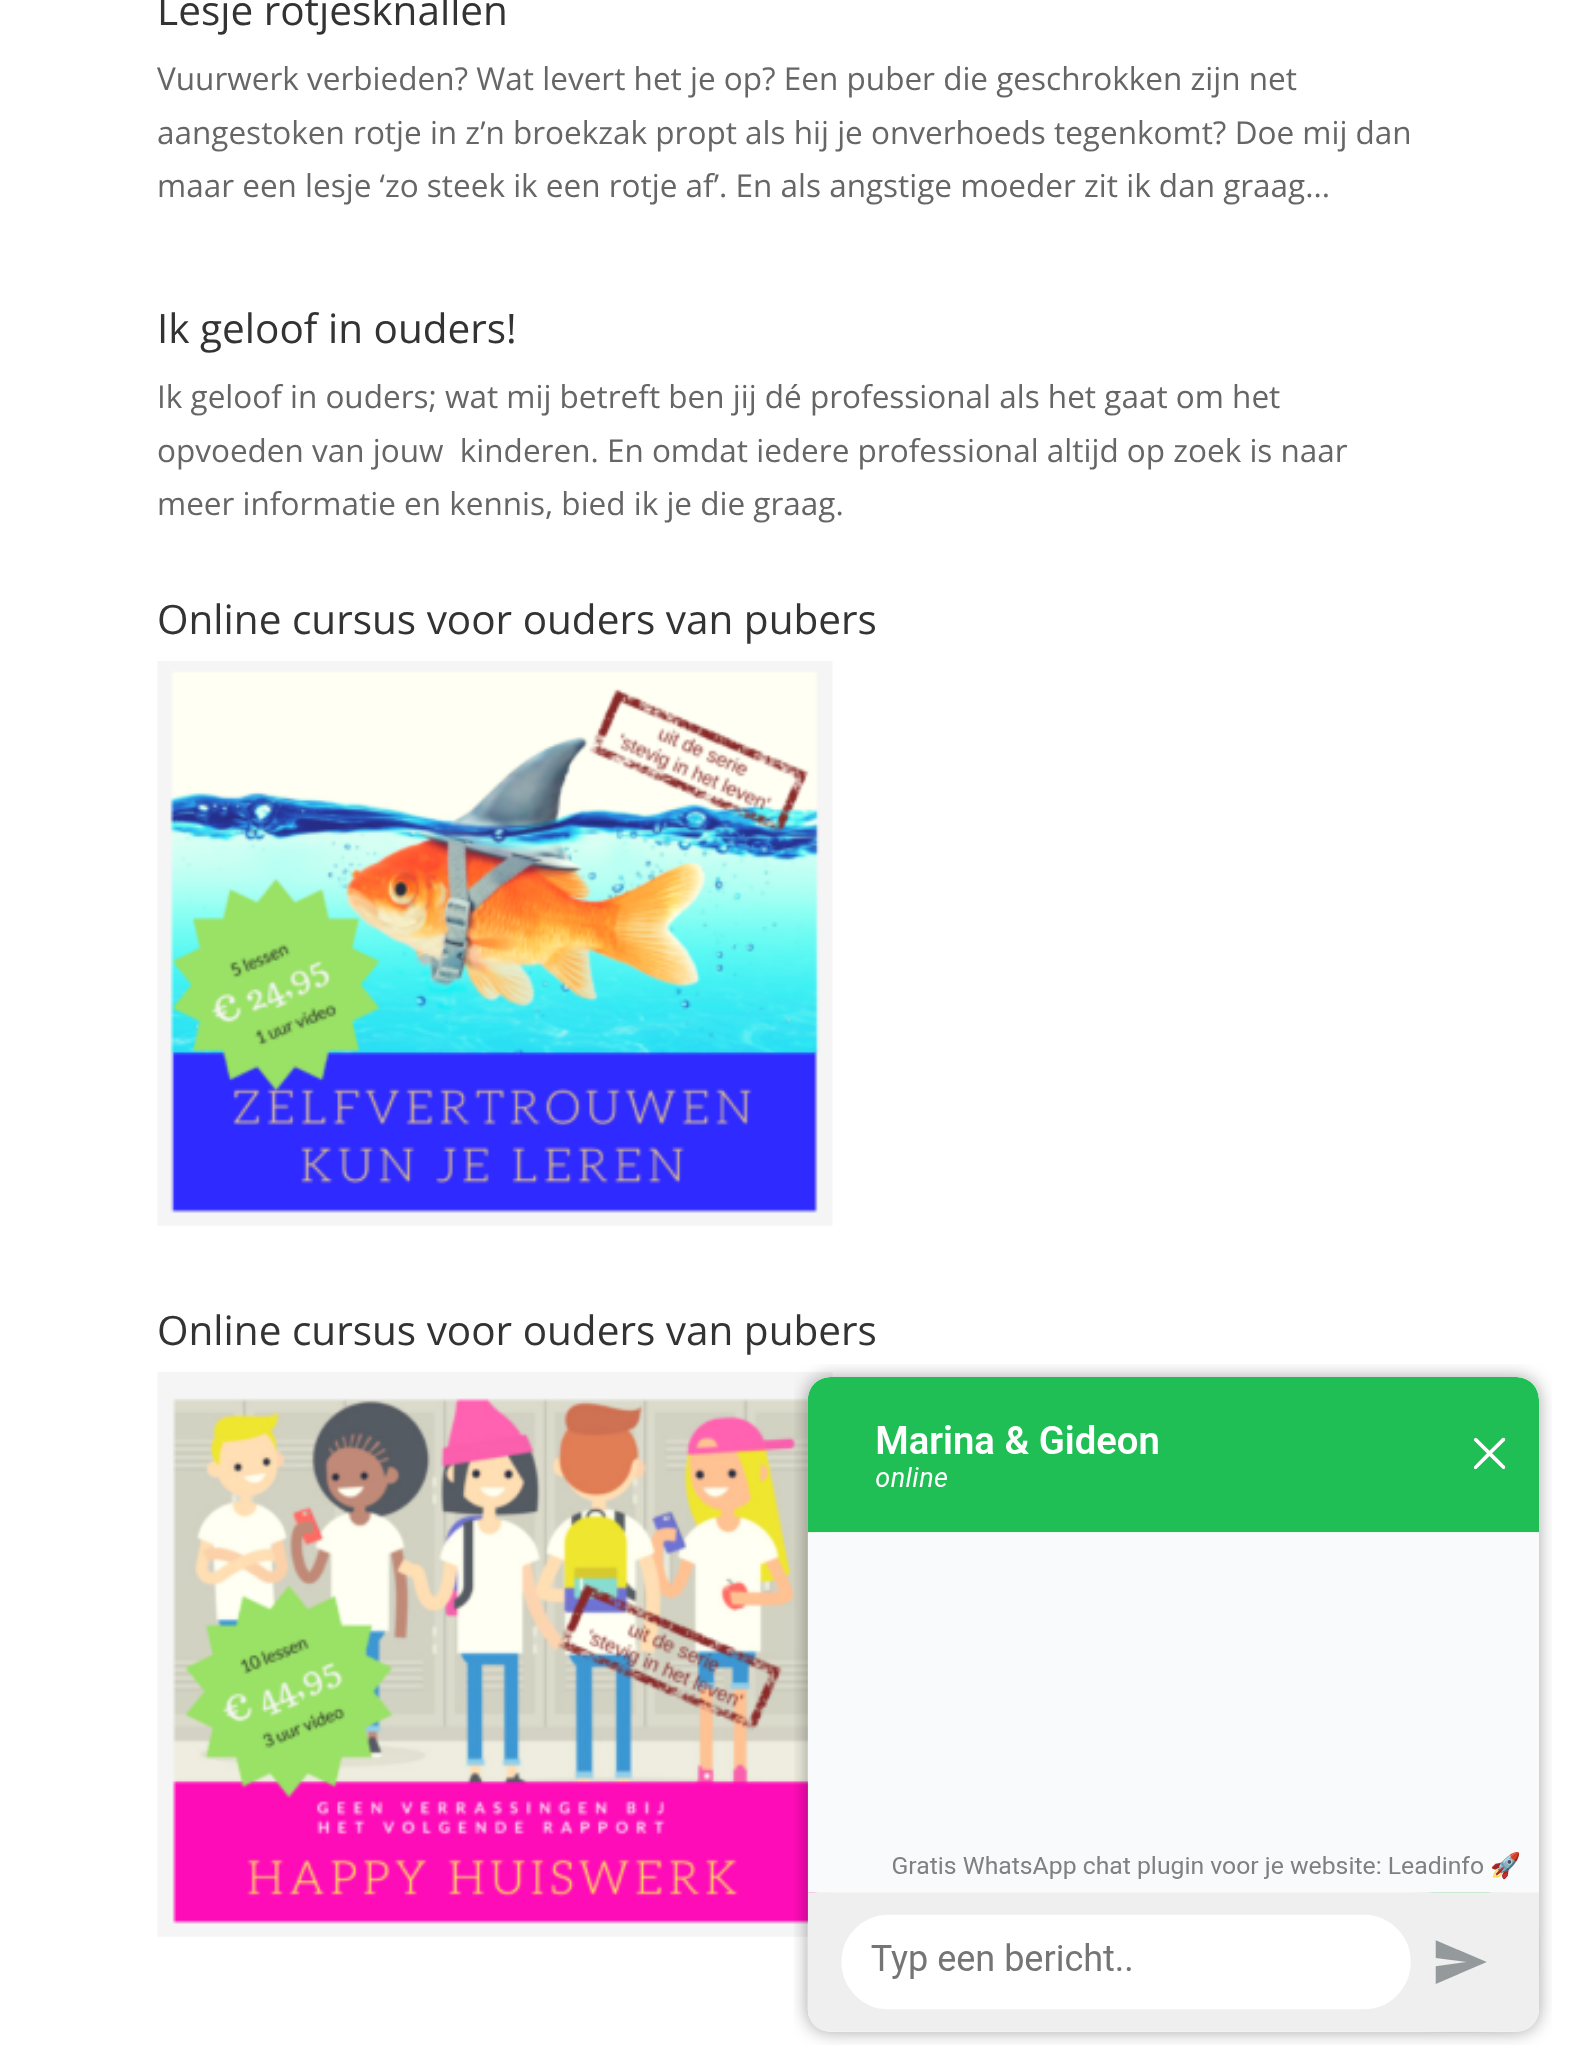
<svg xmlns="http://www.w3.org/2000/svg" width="1572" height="2064">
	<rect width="100%" height="100%" fill="#FFFFFF" />
	<text x="157" y="25" font-family="Open Sans" font-size="40.5" fill="#333333">Lesje rotjesknallen</text>
	<g font-family="Open Sans" font-size="31.5" fill="#666666">
		<text x="157" y="90">Vuurwerk verbieden? Wat levert het je op? Een puber die geschrokken zijn net</text>
		<text x="157" y="144">aangestoken rotje in z’n broekzak propt als hij je onverhoeds tegenkomt? Doe mij dan</text>
		<text x="157" y="197">maar een lesje ‘zo steek ik een rotje af’. En als angstige moeder zit ik dan graag...</text>
	</g>
	<text x="157" y="343" font-family="Open Sans" font-size="40.5" fill="#333333">Ik geloof in ouders!</text>
	<g font-family="Open Sans" font-size="31.5" fill="#666666">
		<text x="157" y="408">Ik geloof in ouders; wat mij betreft ben jij dé professional als het gaat om het</text>
		<text x="157" y="462" xml:space="preserve">opvoeden van jouw  kinderen. En omdat iedere professional altijd op zoek is naar</text>
		<text x="157" y="515">meer informatie en kennis, bied ik je die graag.</text>
	</g>
	<text x="157" y="634" font-family="Open Sans" font-size="40.5" fill="#333333">Online cursus voor ouders van pubers</text>
	<image x="157" y="661" width="676" height="565" href="assets/img1.png" />
	<text x="157" y="1345" font-family="Open Sans" font-size="40.5" fill="#333333">Online cursus voor ouders van pubers</text>
	<image x="157" y="1372" width="676" height="565" href="assets/img2.png" />
	<image x="1409" y="1892" width="131" height="141" href="assets/img4.png" />
	<image x="794" y="1364" width="758" height="681" href="assets/img3.png" />
</svg>
